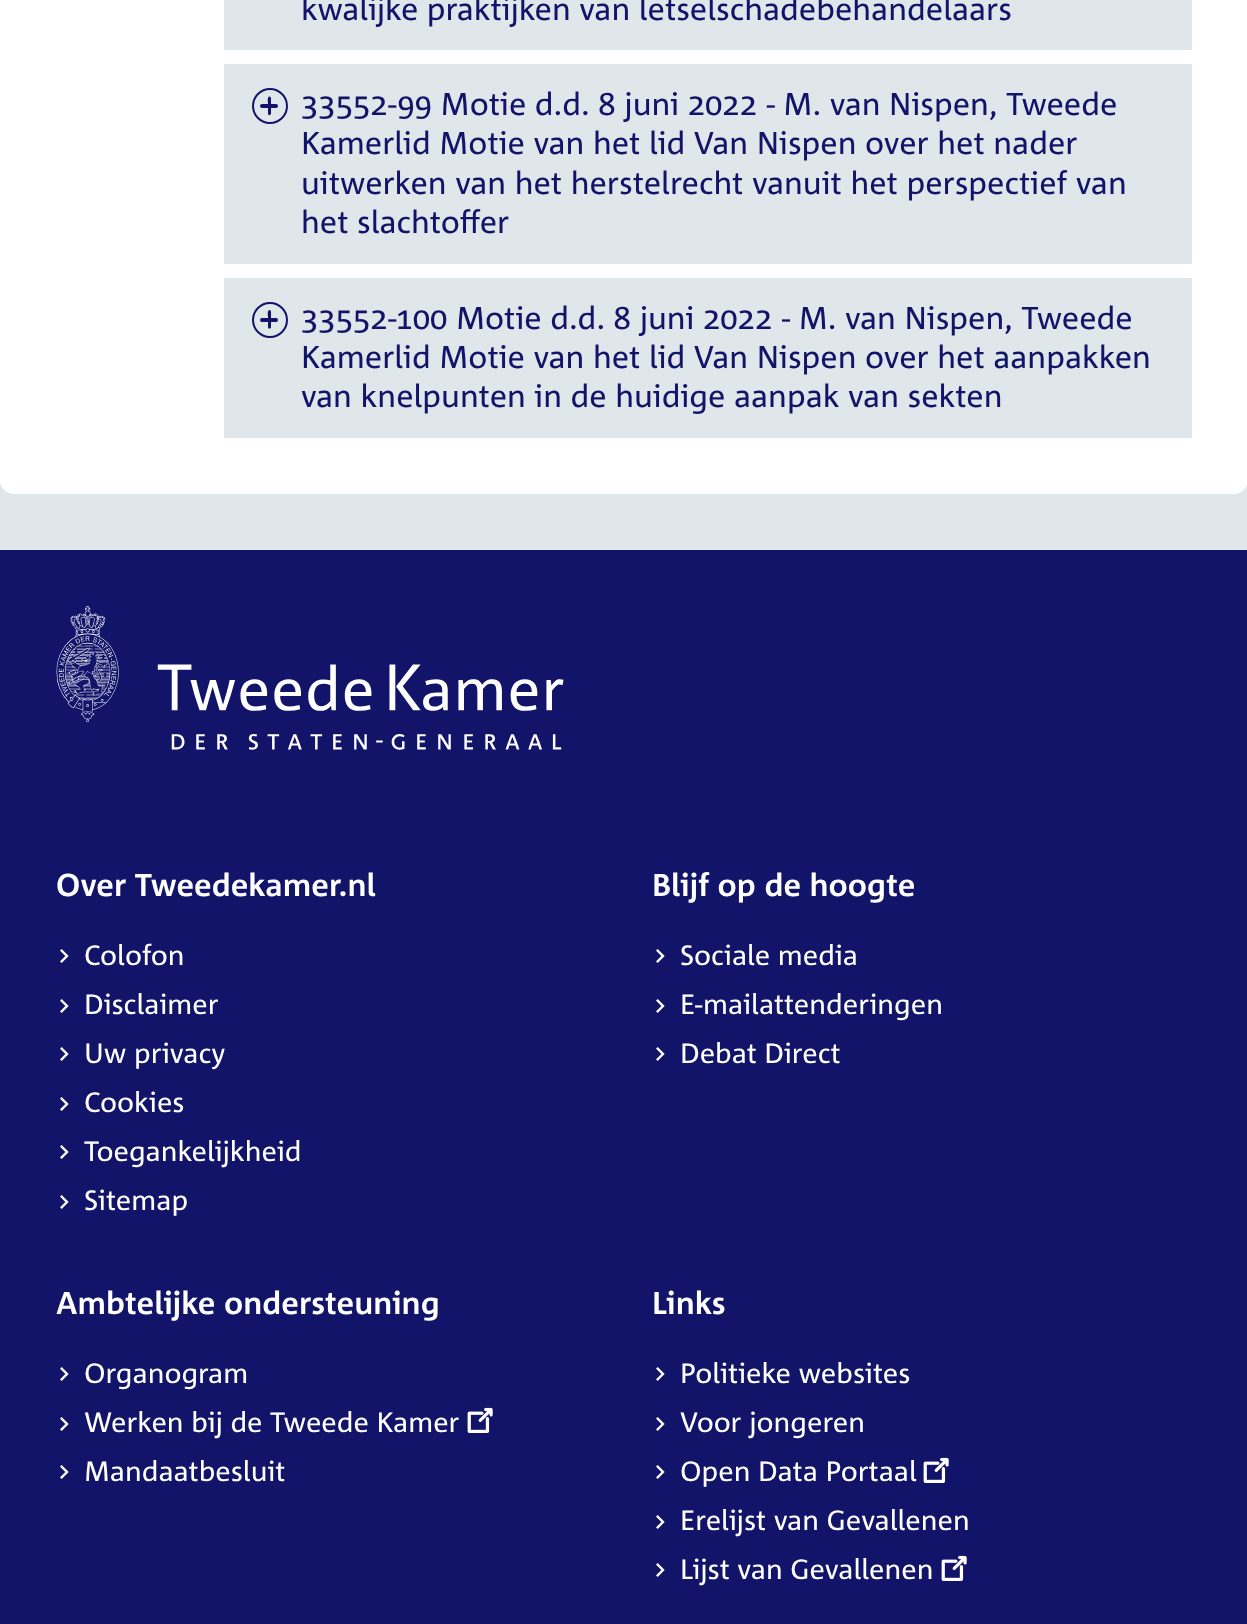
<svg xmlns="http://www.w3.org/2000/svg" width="1247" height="1624">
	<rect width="100%" height="100%" fill="#E0E7EA" />
	<rect x="0" y="-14" width="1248" height="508" rx="14" fill="#FFFFFF" />
	<rect x="224" y="0" width="968" height="50" fill="#E0E7EA" />
	<text x="301" y="20" font-family="'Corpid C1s'" font-size="31.5" fill="#121469">kwalijke praktijken van letselschadebehandelaars</text>
	<rect x="224" y="64" width="968" height="200" fill="#E0E7EA" />
	<circle cx="270" cy="106" r="17" fill="none" stroke="#121469" stroke-width="2" />
	<rect x="260" y="104" width="18" height="4" rx="2" fill="#121469" />
	<path d="M271 98.5V114L270 115C267.5 116 268 112 268 111V103.5C268 102 267 96.5 269.5 96.5C270.5 96.5 271 97.5 271 98.5Z" fill="#121469" />
	<g font-family="'Corpid C1s'" font-size="31.5" fill="#121469">
		<text x="301" y="115">33552-99 Motie d.d. 8 juni 2022 - M. van Nispen, Tweede</text>
		<text x="301" y="154">Kamerlid Motie van het lid Van Nispen over het nader</text>
		<text x="301" y="194">uitwerken van het herstelrecht vanuit het perspectief van</text>
		<text x="301" y="233">het slachtoffer</text>
	</g>
	<rect x="224" y="278" width="968" height="160" fill="#E0E7EA" />
	<circle cx="270" cy="320" r="17" fill="none" stroke="#121469" stroke-width="2" />
	<rect x="260" y="318" width="18" height="4" rx="2" fill="#121469" />
	<path d="M271 312V327.5L270 328.5C267.5 329.5 268 325.5 268 324.5V317C268 315.5 267 310 269.5 310C270.5 310 271 311 271 312Z" fill="#121469" />
	<g font-family="'Corpid C1s'" font-size="31.5" fill="#121469">
		<text x="301" y="329">33552-100 Motie d.d. 8 juni 2022 - M. van Nispen, Tweede</text>
		<text x="301" y="368">Kamerlid Motie van het lid Van Nispen over het aanpakken</text>
		<text x="301" y="407">van knelpunten in de huidige aanpak van sekten</text>
	</g>
	<rect x="0" y="550" width="1247" height="1074" fill="#121469" />
	<image x="56" y="606" width="508" height="144" href="assets/img1.png" />
	<text x="56" y="896" font-family="'Corpid C1s'" font-size="31.5" font-weight="700" fill="#FFFFFF">Over Tweedekamer.nl</text>
	<image x="60" y="949" width="9" height="14" href="assets/img2.png" />
	<text x="84" y="965" font-family="'Corpid C1s'" font-size="28" fill="#FFFFFF">Colofon</text>
	<image x="60" y="999" width="9" height="14" href="assets/img2.png" />
	<text x="84" y="1014" font-family="'Corpid C1s'" font-size="28" fill="#FFFFFF">Disclaimer</text>
	<image x="60" y="1047" width="9" height="14" href="assets/img2.png" />
	<text x="84" y="1063" font-family="'Corpid C1s'" font-size="28" fill="#FFFFFF">Uw privacy</text>
	<image x="60" y="1097" width="9" height="14" href="assets/img2.png" />
	<text x="84" y="1112" font-family="'Corpid C1s'" font-size="28" fill="#FFFFFF">Cookies</text>
	<image x="60" y="1145" width="9" height="14" href="assets/img2.png" />
	<text x="84" y="1161" font-family="'Corpid C1s'" font-size="28" fill="#FFFFFF">Toegankelijkheid</text>
	<image x="60" y="1195" width="9" height="14" href="assets/img2.png" />
	<text x="84" y="1210" font-family="'Corpid C1s'" font-size="28" fill="#FFFFFF">Sitemap</text>
	<text x="652" y="896" font-family="'Corpid C1s'" font-size="31.5" font-weight="700" fill="#FFFFFF">Blijf op de hoogte</text>
	<image x="656" y="949" width="9" height="14" href="assets/img2.png" />
	<text x="680" y="965" font-family="'Corpid C1s'" font-size="28" fill="#FFFFFF">Sociale media</text>
	<image x="656" y="999" width="9" height="14" href="assets/img2.png" />
	<text x="680" y="1014" font-family="'Corpid C1s'" font-size="28" fill="#FFFFFF">E-mailattenderingen</text>
	<image x="656" y="1047" width="9" height="14" href="assets/img2.png" />
	<text x="680" y="1063" font-family="'Corpid C1s'" font-size="28" fill="#FFFFFF">Debat Direct</text>
	<text x="56" y="1314" font-family="'Corpid C1s'" font-size="31.5" font-weight="700" fill="#FFFFFF">Ambtelijke ondersteuning</text>
	<image x="60" y="1367" width="9" height="14" href="assets/img2.png" />
	<text x="84" y="1383" font-family="'Corpid C1s'" font-size="28" fill="#FFFFFF">Organogram</text>
	<image x="60" y="1417" width="9" height="14" href="assets/img2.png" />
	<text x="84" y="1432" font-family="'Corpid C1s'" font-size="28" fill="#FFFFFF">Werken bij de Tweede Kamer</text>
	<image x="467" y="1407" width="26" height="26" href="assets/img3.png" />
	<image x="60" y="1465" width="9" height="14" href="assets/img2.png" />
	<text x="84" y="1481" font-family="'Corpid C1s'" font-size="28" fill="#FFFFFF">Mandaatbesluit</text>
	<text x="652" y="1314" font-family="'Corpid C1s'" font-size="31.5" font-weight="700" fill="#FFFFFF">Links</text>
	<image x="656" y="1367" width="9" height="14" href="assets/img2.png" />
	<text x="680" y="1383" font-family="'Corpid C1s'" font-size="28" fill="#FFFFFF">Politieke websites</text>
	<image x="656" y="1417" width="9" height="14" href="assets/img2.png" />
	<text x="680" y="1432" font-family="'Corpid C1s'" font-size="28" fill="#FFFFFF">Voor jongeren</text>
	<image x="656" y="1465" width="9" height="14" href="assets/img2.png" />
	<text x="680" y="1481" font-family="'Corpid C1s'" font-size="28" fill="#FFFFFF">Open Data Portaal</text>
	<image x="923" y="1457" width="26" height="26" href="assets/img3.png" />
	<image x="656" y="1515" width="9" height="14" href="assets/img2.png" />
	<text x="680" y="1530" font-family="'Corpid C1s'" font-size="28" fill="#FFFFFF">Erelijst van Gevallenen</text>
	<image x="656" y="1563" width="9" height="14" href="assets/img2.png" />
	<text x="680" y="1579" font-family="'Corpid C1s'" font-size="28" fill="#FFFFFF">Lijst van Gevallenen</text>
	<image x="941" y="1555" width="26" height="26" href="assets/img3.png" />
</svg>
